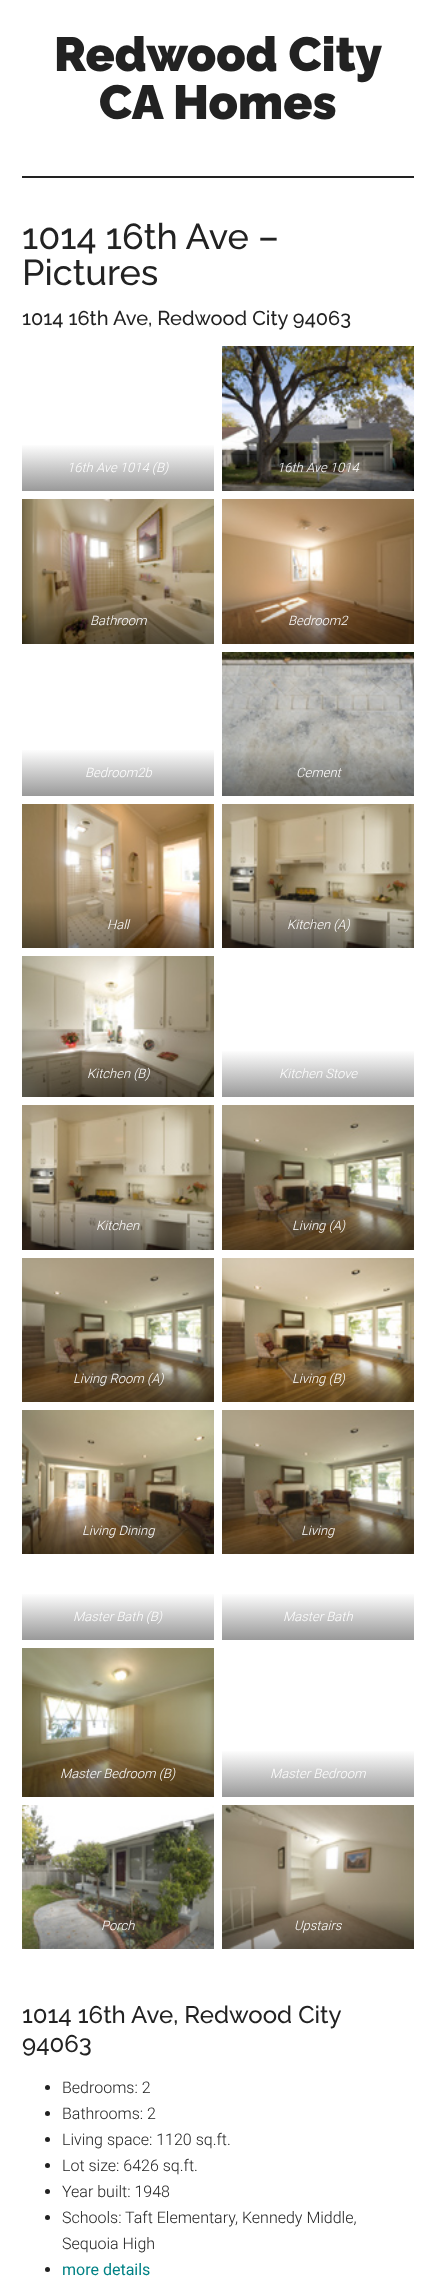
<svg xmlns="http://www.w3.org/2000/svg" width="436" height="2295">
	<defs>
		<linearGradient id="g1" gradientUnits="userSpaceOnUse" x1="118" y1="491" x2="118" y2="444"><stop offset="0" stop-color="#999999" /><stop offset="1" stop-color="#FFFFFF" /></linearGradient>
		<linearGradient id="g2" gradientUnits="userSpaceOnUse" x1="118" y1="796" x2="118" y2="749"><stop offset="0" stop-color="#999999" /><stop offset="1" stop-color="#FFFFFF" /></linearGradient>
		<linearGradient id="g3" gradientUnits="userSpaceOnUse" x1="318" y1="1097" x2="318" y2="1050"><stop offset="0" stop-color="#999999" /><stop offset="1" stop-color="#FFFFFF" /></linearGradient>
		<linearGradient id="g4" gradientUnits="userSpaceOnUse" x1="118" y1="1640" x2="118" y2="1593"><stop offset="0" stop-color="#999999" /><stop offset="1" stop-color="#FFFFFF" /></linearGradient>
		<linearGradient id="g5" gradientUnits="userSpaceOnUse" x1="318" y1="1640" x2="318" y2="1593"><stop offset="0" stop-color="#999999" /><stop offset="1" stop-color="#FFFFFF" /></linearGradient>
		<linearGradient id="g6" gradientUnits="userSpaceOnUse" x1="318" y1="1797" x2="318" y2="1750"><stop offset="0" stop-color="#999999" /><stop offset="1" stop-color="#FFFFFF" /></linearGradient>
	</defs>
	<rect width="100%" height="100%" fill="#FFFFFF" />
	<rect x="22" y="176" width="392" height="2" fill="#222222" />
	<g font-family="Raleway" font-size="48" font-weight="900" fill="#222222">
		<text x="54" y="71">Redwood City</text>
		<text x="99" y="119">CA Homes</text>
	</g>
	<g font-family="Raleway" font-size="36" font-weight="500" fill="#222222">
		<text x="22" y="249">1014 16th Ave –</text>
		<text x="22" y="285">Pictures</text>
	</g>
	<text x="22" y="325" font-family="Raleway" font-size="20" font-weight="500" fill="#222222">1014 16th Ave, Redwood City 94063</text>
	<rect x="22" y="445" width="192" height="46" fill="url(#g1)" />
	<text x="67" y="472" font-family="Roboto" font-size="13" font-weight="300" font-style="italic" fill="#FFFFFF">16th Ave 1014 (B)</text>
	<image x="222" y="346" width="192" height="145" href="assets/img1.png" />
	<text x="277" y="472" font-family="Roboto" font-size="13" font-weight="300" font-style="italic" fill="#FFFFFF">16th Ave 1014</text>
	<image x="22" y="499" width="192" height="145" href="assets/img2.png" />
	<text x="90" y="625" font-family="Roboto" font-size="13" font-weight="300" font-style="italic" fill="#FFFFFF">Bathroom</text>
	<image x="222" y="499" width="192" height="145" href="assets/img3.png" />
	<text x="288" y="625" font-family="Roboto" font-size="13" font-weight="300" font-style="italic" fill="#FFFFFF">Bedroom2</text>
	<rect x="22" y="750" width="192" height="46" fill="url(#g2)" />
	<text x="85" y="777" font-family="Roboto" font-size="13" font-weight="300" font-style="italic" fill="#FFFFFF">Bedroom2b</text>
	<image x="222" y="652" width="192" height="144" href="assets/img4.png" />
	<text x="296" y="777" font-family="Roboto" font-size="13" font-weight="300" font-style="italic" fill="#FFFFFF">Cement</text>
	<image x="22" y="804" width="192" height="144" href="assets/img5.png" />
	<text x="107" y="929" font-family="Roboto" font-size="13" font-weight="300" font-style="italic" fill="#FFFFFF">Hall</text>
	<image x="222" y="804" width="192" height="144" href="assets/img6.png" />
	<text x="287" y="929" font-family="Roboto" font-size="13" font-weight="300" font-style="italic" fill="#FFFFFF">Kitchen (A)</text>
	<image x="22" y="956" width="192" height="141" href="assets/img7.png" />
	<text x="87" y="1078" font-family="Roboto" font-size="13" font-weight="300" font-style="italic" fill="#FFFFFF">Kitchen (B)</text>
	<rect x="222" y="1051" width="192" height="46" fill="url(#g3)" />
	<text x="279" y="1078" font-family="Roboto" font-size="13" font-weight="300" font-style="italic" fill="#FFFFFF">Kitchen Stove</text>
	<image x="22" y="1105" width="192" height="145" href="assets/img8.png" />
	<text x="96" y="1230" font-family="Roboto" font-size="13" font-weight="300" font-style="italic" fill="#FFFFFF">Kitchen</text>
	<image x="222" y="1105" width="192" height="145" href="assets/img9.png" />
	<text x="292" y="1230" font-family="Roboto" font-size="13" font-weight="300" font-style="italic" fill="#FFFFFF">Living (A)</text>
	<image x="22" y="1258" width="192" height="144" href="assets/img10.png" />
	<text x="73" y="1383" font-family="Roboto" font-size="13" font-weight="300" font-style="italic" fill="#FFFFFF">Living Room (A)</text>
	<image x="222" y="1258" width="192" height="144" href="assets/img11.png" />
	<text x="292" y="1383" font-family="Roboto" font-size="13" font-weight="300" font-style="italic" fill="#FFFFFF">Living (B)</text>
	<image x="22" y="1410" width="192" height="144" href="assets/img12.png" />
	<text x="82" y="1535" font-family="Roboto" font-size="13" font-weight="300" font-style="italic" fill="#FFFFFF">Living Dining</text>
	<image x="222" y="1410" width="192" height="144" href="assets/img10.png" />
	<text x="301" y="1535" font-family="Roboto" font-size="13" font-weight="300" font-style="italic" fill="#FFFFFF">Living</text>
	<rect x="22" y="1594" width="192" height="46" fill="url(#g4)" />
	<text x="73" y="1621" font-family="Roboto" font-size="13" font-weight="300" font-style="italic" fill="#FFFFFF">Master Bath (B)</text>
	<rect x="222" y="1594" width="192" height="46" fill="url(#g5)" />
	<text x="283" y="1621" font-family="Roboto" font-size="13" font-weight="300" font-style="italic" fill="#FFFFFF">Master Bath</text>
	<image x="22" y="1648" width="192" height="149" href="assets/img13.png" />
	<text x="60" y="1778" font-family="Roboto" font-size="13" font-weight="300" font-style="italic" fill="#FFFFFF">Master Bedroom (B)</text>
	<rect x="222" y="1751" width="192" height="46" fill="url(#g6)" />
	<text x="270" y="1778" font-family="Roboto" font-size="13" font-weight="300" font-style="italic" fill="#FFFFFF">Master Bedroom</text>
	<image x="22" y="1805" width="192" height="144" href="assets/img14.png" />
	<text x="101" y="1930" font-family="Roboto" font-size="13" font-weight="300" font-style="italic" fill="#FFFFFF">Porch</text>
	<image x="222" y="1805" width="192" height="144" href="assets/img15.png" />
	<text x="294" y="1930" font-family="Roboto" font-size="13" font-weight="300" font-style="italic" fill="#FFFFFF">Upstairs</text>
	<g font-family="Raleway" font-size="24" font-weight="500" fill="#222222">
		<text x="22" y="2023">1014 16th Ave, Redwood City</text>
		<text x="22" y="2052">94063</text>
	</g>
	<circle cx="47.5" cy="2087.5" r="2.5" fill="#222222" />
	<text x="62" y="2093" font-family="Roboto" font-size="16" font-weight="300" fill="#222222">Bedrooms: 2</text>
	<circle cx="47.5" cy="2113.5" r="2.5" fill="#222222" />
	<text x="62" y="2119" font-family="Roboto" font-size="16" font-weight="300" fill="#222222">Bathrooms: 2</text>
	<circle cx="47.5" cy="2139.5" r="2.5" fill="#222222" />
	<text x="62" y="2145" font-family="Roboto" font-size="16" font-weight="300" fill="#222222">Living space: 1120 sq.ft.</text>
	<circle cx="47.5" cy="2165.5" r="2.5" fill="#222222" />
	<text x="62" y="2171" font-family="Roboto" font-size="16" font-weight="300" fill="#222222">Lot size: 6426 sq.ft.</text>
	<circle cx="47.5" cy="2191.5" r="2.5" fill="#222222" />
	<text x="62" y="2197" font-family="Roboto" font-size="16" font-weight="300" fill="#222222">Year built: 1948</text>
	<circle cx="47.5" cy="2217.5" r="2.5" fill="#222222" />
	<g font-family="Roboto" font-size="16" font-weight="300" fill="#222222">
		<text x="62" y="2223">Schools: Taft Elementary, Kennedy Middle,</text>
		<text x="62" y="2249">Sequoia High</text>
	</g>
	<circle cx="47.5" cy="2269.5" r="2.5" fill="#222222" />
	<text x="62" y="2275" font-family="Roboto" font-size="16" fill="#008285">more details</text>
</svg>
